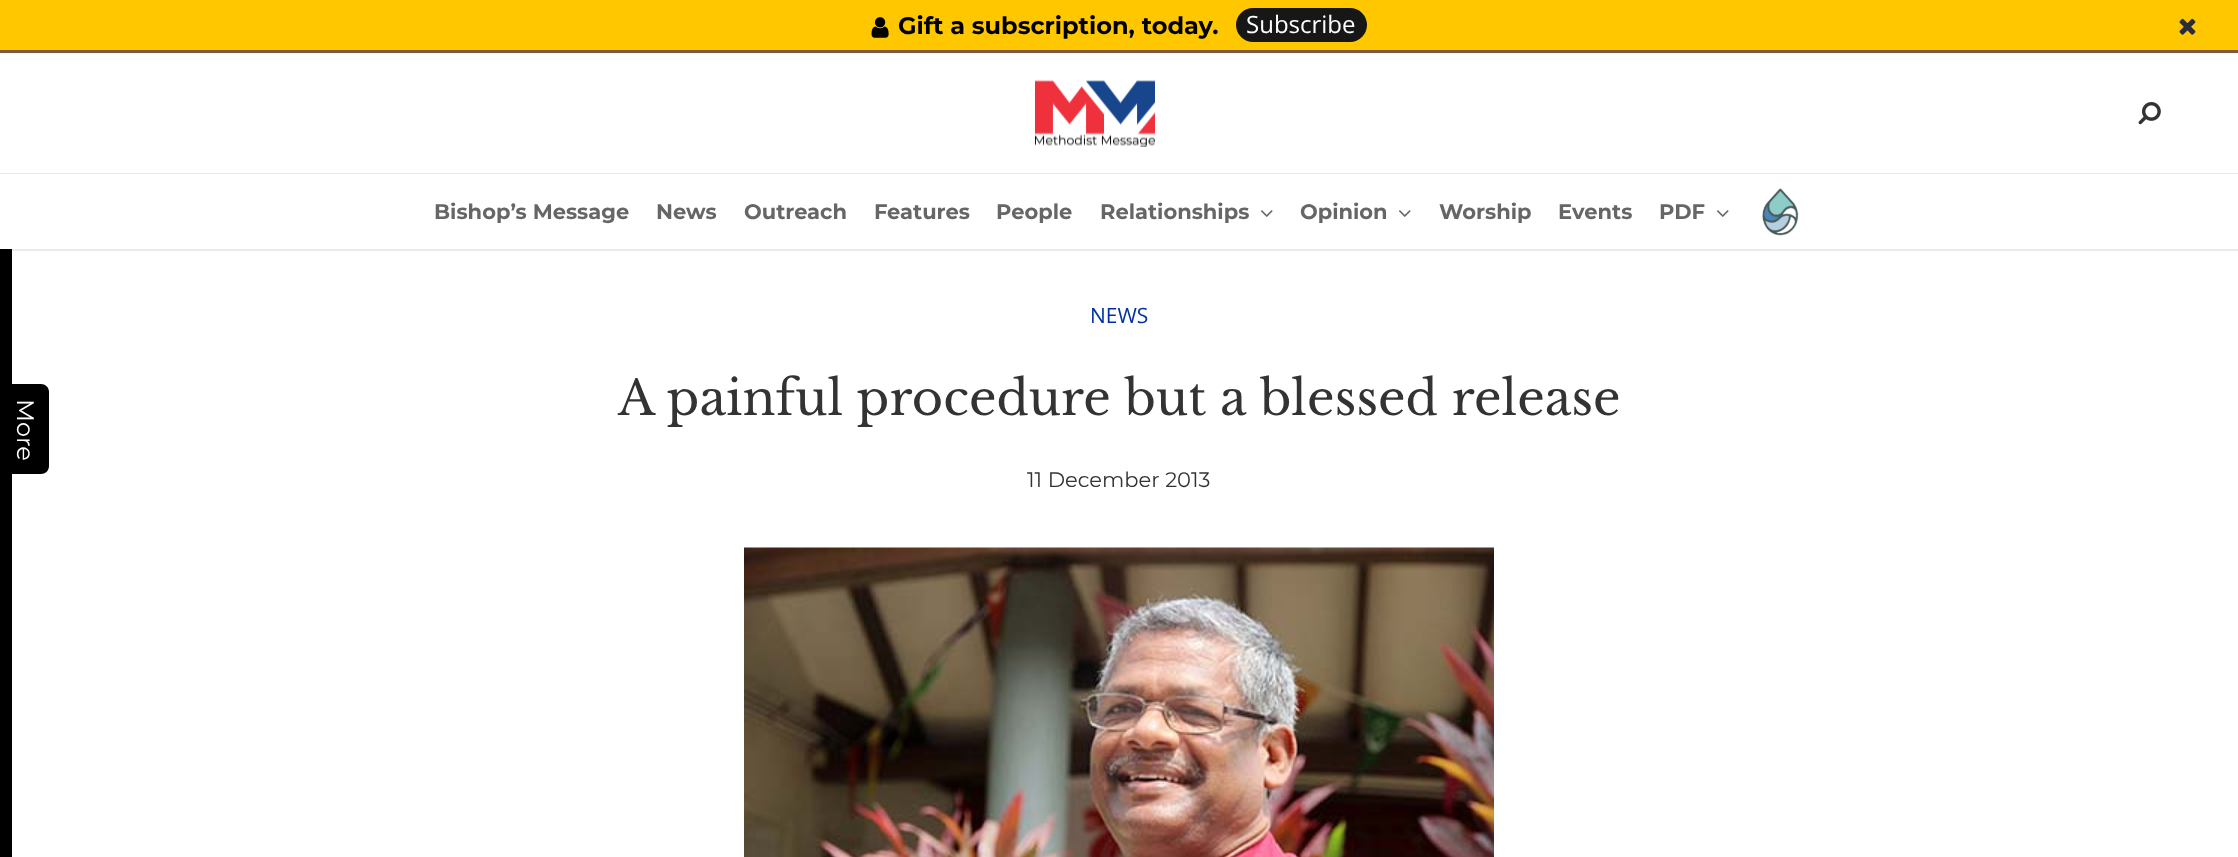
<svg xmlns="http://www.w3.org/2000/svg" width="2238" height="857">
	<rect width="100%" height="100%" fill="#FFFFFF" />
	<rect x="12" y="249" width="2226" height="2" fill="#EBEBEB" />
	<rect x="0" y="0" width="2238" height="50" fill="#FFC700" />
	<rect x="0" y="50" width="2238" height="3" fill="#7E593F" />
	<image x="871" y="17" width="18" height="21" href="assets/img1.png" />
	<text x="898" y="34" font-family="Montserrat" font-size="24" font-weight="700" fill="#000000">Gift a subscription, today.</text>
	<rect x="1236" y="8" width="131" height="34" rx="17" fill="#171717" />
	<text x="1246" y="33" font-family="Open Sans" font-size="24" fill="#FFFFFF">Subscribe</text>
	<image x="2179" y="18" width="17" height="17" href="assets/img2.png" />
	<rect x="0" y="173" width="2238" height="1" fill="#EBEBEB" />
	<image x="1035" y="80" width="120" height="67" href="assets/img3.png" />
	<image x="2138" y="102" width="23" height="23" href="assets/img4.png" />
	<g font-family="Montserrat" font-size="21" font-weight="700" fill="#666666">
		<text x="434" y="219">Bishop’s Message</text>
		<text x="656" y="219">News</text>
		<text x="744" y="219">Outreach</text>
		<text x="874" y="219">Features</text>
		<text x="996" y="219">People</text>
		<text x="1100" y="219">Relationships</text>
	</g>
	<image x="1261" y="210" width="12" height="7" href="assets/img5.png" />
	<text x="1300" y="219" font-family="Montserrat" font-size="21" font-weight="700" fill="#666666">Opinion</text>
	<image x="1399" y="210" width="12" height="7" href="assets/img5.png" />
	<g font-family="Montserrat" font-size="21" font-weight="700" fill="#666666">
		<text x="1439" y="219">Worship</text>
		<text x="1558" y="219">Events</text>
		<text x="1659" y="219">PDF</text>
	</g>
	<image x="1717" y="210" width="12" height="7" href="assets/img5.png" />
	<image x="1762" y="188" width="37" height="48" href="assets/img6.png" />
	<path d="M49 392V466C49 471 45 474 41 474H11V384H41C45 384 49 387 49 392Z" fill="#000000" />
	<rect x="0" y="249" width="12" height="608" fill="#000000" />
	<text x="17" y="399" transform="rotate(90 17 399)" font-family="Montserrat" font-size="24" fill="#FFFFFF">More</text>
	<text x="1090" y="323" font-family="Open Sans" font-size="21" fill="#0032A1">NEWS</text>
	<text x="618" y="415" font-family="Libre Baskerville" font-size="48" fill="#333333">A painful procedure but a blessed release</text>
	<text x="1027" y="487" font-family="Montserrat" font-size="21" fill="#333333">11 December 2013</text>
	<image x="744" y="547" width="750" height="310" href="assets/img7.png" />
</svg>
